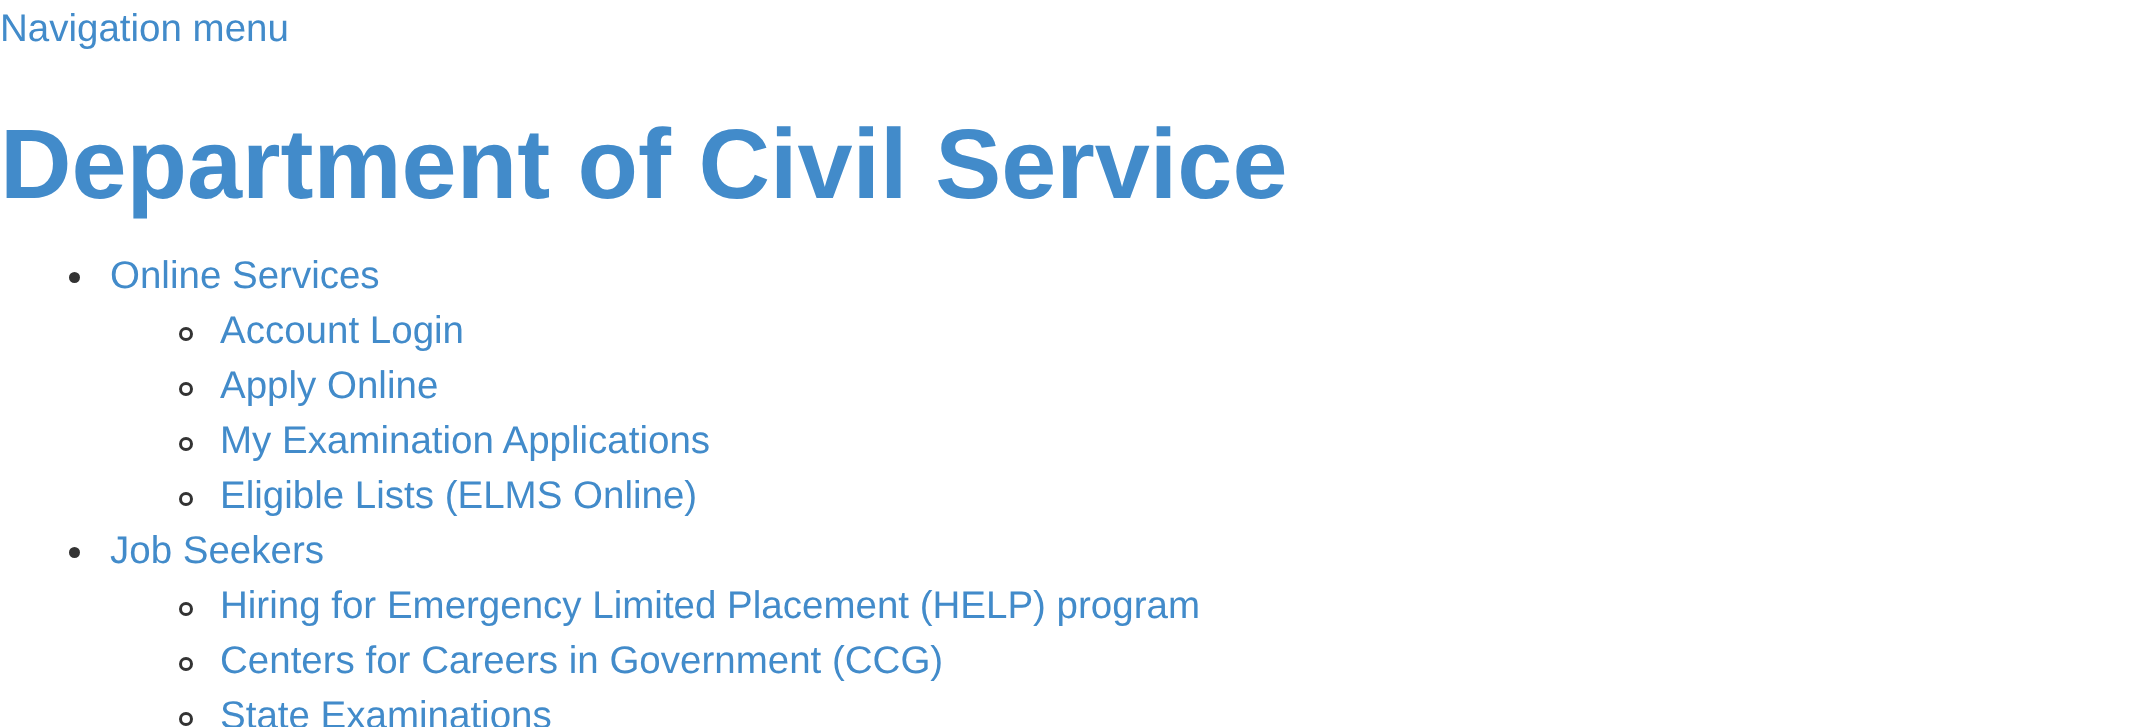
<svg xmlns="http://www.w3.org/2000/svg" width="2147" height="727">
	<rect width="100%" height="100%" fill="#FFFFFF" />
	<text x="0" y="41" font-family="Liberation Sans" font-size="38.5" fill="#428BCA">Navigation menu</text>
	<text x="0" y="198" font-family="Liberation Sans" font-size="99" font-weight="700" fill="#428BCA">Department of Civil Service</text>
	<circle cx="74.5" cy="277.5" r="5.5" fill="#333333" />
	<text x="110" y="288" font-family="Liberation Sans" font-size="38.5" fill="#428BCA">Online Services</text>
	<circle cx="186" cy="334" r="5.5" fill="none" stroke="#333333" stroke-width="3" />
	<text x="220" y="343" font-family="Liberation Sans" font-size="38.5" fill="#428BCA">Account Login</text>
	<circle cx="186" cy="389" r="5.5" fill="none" stroke="#333333" stroke-width="3" />
	<text x="220" y="398" font-family="Liberation Sans" font-size="38.5" fill="#428BCA">Apply Online</text>
	<circle cx="186" cy="444" r="5.5" fill="none" stroke="#333333" stroke-width="3" />
	<text x="220" y="453" font-family="Liberation Sans" font-size="38.5" fill="#428BCA">My Examination Applications</text>
	<circle cx="186" cy="499" r="5.5" fill="none" stroke="#333333" stroke-width="3" />
	<text x="220" y="508" font-family="Liberation Sans" font-size="38.5" fill="#428BCA">Eligible Lists (ELMS Online)</text>
	<circle cx="74.5" cy="552.5" r="5.5" fill="#333333" />
	<text x="110" y="563" font-family="Liberation Sans" font-size="38.5" fill="#428BCA">Job Seekers</text>
	<circle cx="186" cy="609" r="5.5" fill="none" stroke="#333333" stroke-width="3" />
	<text x="220" y="618" font-family="Liberation Sans" font-size="38.5" fill="#428BCA">Hiring for Emergency Limited Placement (HELP) program</text>
	<circle cx="186" cy="664" r="5.5" fill="none" stroke="#333333" stroke-width="3" />
	<text x="220" y="673" font-family="Liberation Sans" font-size="38.5" fill="#428BCA">Centers for Careers in Government (CCG)</text>
	<circle cx="186" cy="719" r="5.5" fill="none" stroke="#333333" stroke-width="3" />
	<text x="220" y="728" font-family="Liberation Sans" font-size="38.5" fill="#428BCA">State Examinations</text>
</svg>
